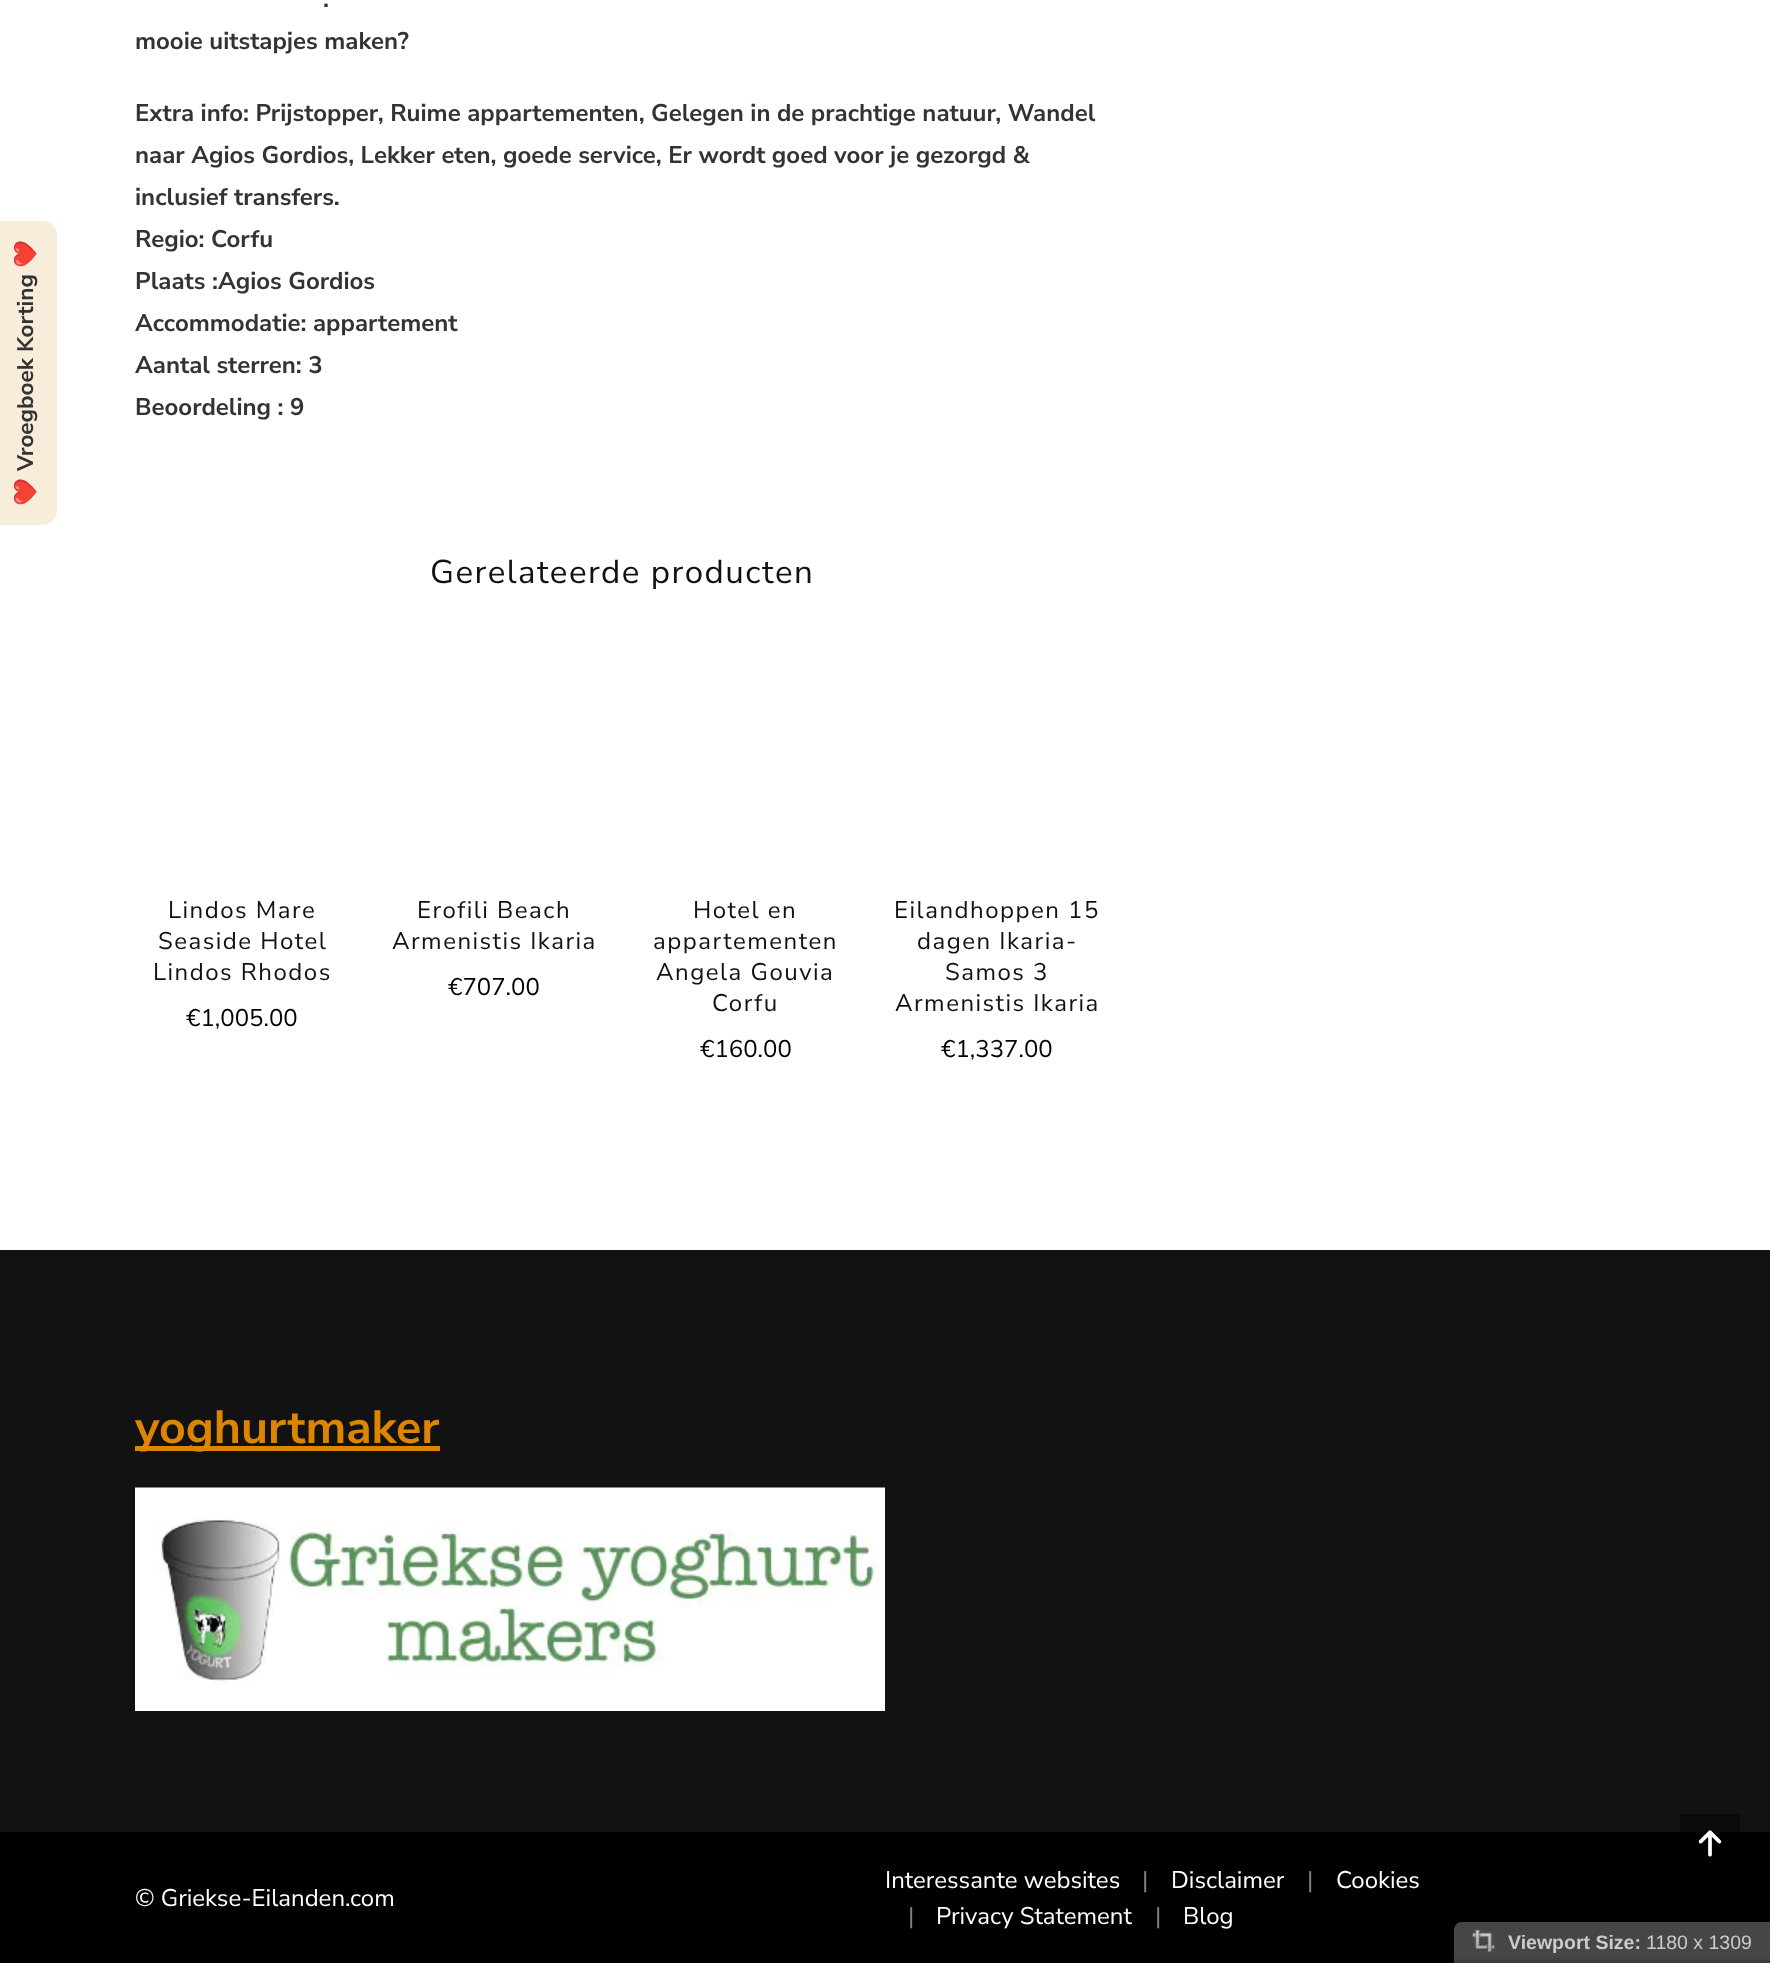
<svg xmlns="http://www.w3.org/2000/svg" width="1770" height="1963">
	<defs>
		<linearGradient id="g1" gradientUnits="userSpaceOnUse" x1="1612" y1="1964" x2="1612" y2="1922"><stop offset="0" stop-color="#373737" /><stop offset="0.18" stop-color="#464646" /></linearGradient>
	</defs>
	<rect width="100%" height="100%" fill="#FFFFFF" />
	<path d="M-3 525V221H42C51 221 57 227 57 236V510C57 518 51 525 42 525Z" fill="#F8EDDB" />
	<text x="33" y="268" transform="rotate(-90 33 268)" font-family="Noto Color Emoji" font-size="22.5" font-weight="700" fill="#333333">❤️</text>
	<text x="33" y="471" transform="rotate(-90 33 471)" font-family="Nunito Sans" font-size="22.5" font-weight="700" fill="#333333">Vroegboek Korting</text>
	<text x="33" y="506" transform="rotate(-90 33 506)" font-family="Noto Color Emoji" font-size="22.5" font-weight="700" fill="#333333">❤️</text>
	<g font-family="Nunito Sans" font-size="24" font-weight="700" fill="#333333">
		<text x="323" y="7">.</text>
		<text x="135" y="49">mooie uitstapjes maken?</text>
		<text x="135" y="121">Extra info: Prijstopper, Ruime appartementen, Gelegen in de prachtige natuur, Wandel</text>
		<text x="135" y="163">naar Agios Gordios, Lekker eten, goede service, Er wordt goed voor je gezorgd &amp;</text>
		<text x="135" y="205">inclusief transfers.</text>
		<text x="135" y="247">Regio: Corfu</text>
		<text x="135" y="289">Plaats :Agios Gordios</text>
		<text x="135" y="331">Accommodatie: appartement</text>
		<text x="135" y="373">Aantal sterren: 3</text>
		<text x="135" y="415">Beoordeling : 9</text>
	</g>
	<text x="430" y="583" font-family="Nunito Sans" font-size="33" letter-spacing="1.5" fill="#111111">Gerelateerde producten</text>
	<g font-family="Nunito Sans" font-size="24" letter-spacing="1.5" fill="#111111">
		<text x="168" y="918">Lindos Mare</text>
		<text x="158" y="949">Seaside Hotel</text>
		<text x="153" y="980">Lindos Rhodos</text>
	</g>
	<text x="186" y="1026" font-family="Nunito Sans" font-size="24" fill="#000000">€1,005.00</text>
	<g font-family="Nunito Sans" font-size="24" letter-spacing="1.5" fill="#111111">
		<text x="417" y="918">Erofili Beach</text>
		<text x="392" y="949">Armenistis Ikaria</text>
	</g>
	<text x="448" y="995" font-family="Nunito Sans" font-size="24" fill="#000000">€707.00</text>
	<g font-family="Nunito Sans" font-size="24" letter-spacing="1.5" fill="#111111">
		<text x="693" y="918">Hotel en</text>
		<text x="653" y="949">appartementen</text>
		<text x="656" y="980">Angela Gouvia</text>
		<text x="712" y="1011">Corfu</text>
	</g>
	<text x="700" y="1057" font-family="Nunito Sans" font-size="24" fill="#000000">€160.00</text>
	<g font-family="Nunito Sans" font-size="24" letter-spacing="1.5" fill="#111111">
		<text x="894" y="918">Eilandhoppen 15</text>
		<text x="917" y="949">dagen Ikaria-</text>
		<text x="945" y="980">Samos 3</text>
		<text x="895" y="1011">Armenistis Ikaria</text>
	</g>
	<text x="941" y="1057" font-family="Nunito Sans" font-size="24" fill="#000000">€1,337.00</text>
	<rect x="0" y="1250" width="1770" height="582" fill="#121212" />
	<rect x="1680" y="1814" width="60" height="18" fill="#0B0B0B" />
	<rect x="135" y="1446" width="305" height="5" fill="#DD8500" />
	<text x="135" y="1443" font-family="Nunito Sans" font-size="46.5" font-weight="700" fill="#DD8500">yoghurtmaker</text>
	<image x="135" y="1487" width="750" height="224" href="assets/img1.png" />
	<rect x="0" y="1832" width="1770" height="131" fill="#000000" />
	<g font-family="Nunito Sans" font-size="24" fill="#FFFFFF">
		<text x="135" y="1906">© Griekse-Eilanden.com</text>
		<text x="885" y="1888">Interessante websites</text>
	</g>
	<text x="1142" y="1888" font-family="Nunito Sans" font-size="24" fill="#808080">|</text>
	<text x="1171" y="1888" font-family="Nunito Sans" font-size="24" fill="#FFFFFF">Disclaimer</text>
	<text x="1307" y="1888" font-family="Nunito Sans" font-size="24" fill="#808080">|</text>
	<text x="1336" y="1888" font-family="Nunito Sans" font-size="24" fill="#FFFFFF">Cookies</text>
	<text x="908" y="1924" font-family="Nunito Sans" font-size="24" fill="#808080">|</text>
	<text x="936" y="1924" font-family="Nunito Sans" font-size="24" fill="#FFFFFF">Privacy Statement</text>
	<text x="1155" y="1924" font-family="Nunito Sans" font-size="24" fill="#808080">|</text>
	<text x="1183" y="1924" font-family="Nunito Sans" font-size="24" fill="#FFFFFF">Blog</text>
	<image x="1698" y="1830" width="24" height="27" href="assets/img2.png" />
	<path d="M1462 1922H1770V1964H1454V1930C1454 1925.5 1457.5 1922 1462 1922Z" fill="url(#g1)" />
	<image x="1471" y="1929" width="24" height="23" href="assets/img3.png" />
	<text x="1508" y="1949" font-family="Liberation Sans" font-size="19.5" font-weight="700" fill="#CCCCCC">Viewport Size:</text>
	<text x="1646" y="1949" font-family="Liberation Sans" font-size="19.5" fill="#CCCCCC">1180 x 1309</text>
</svg>
